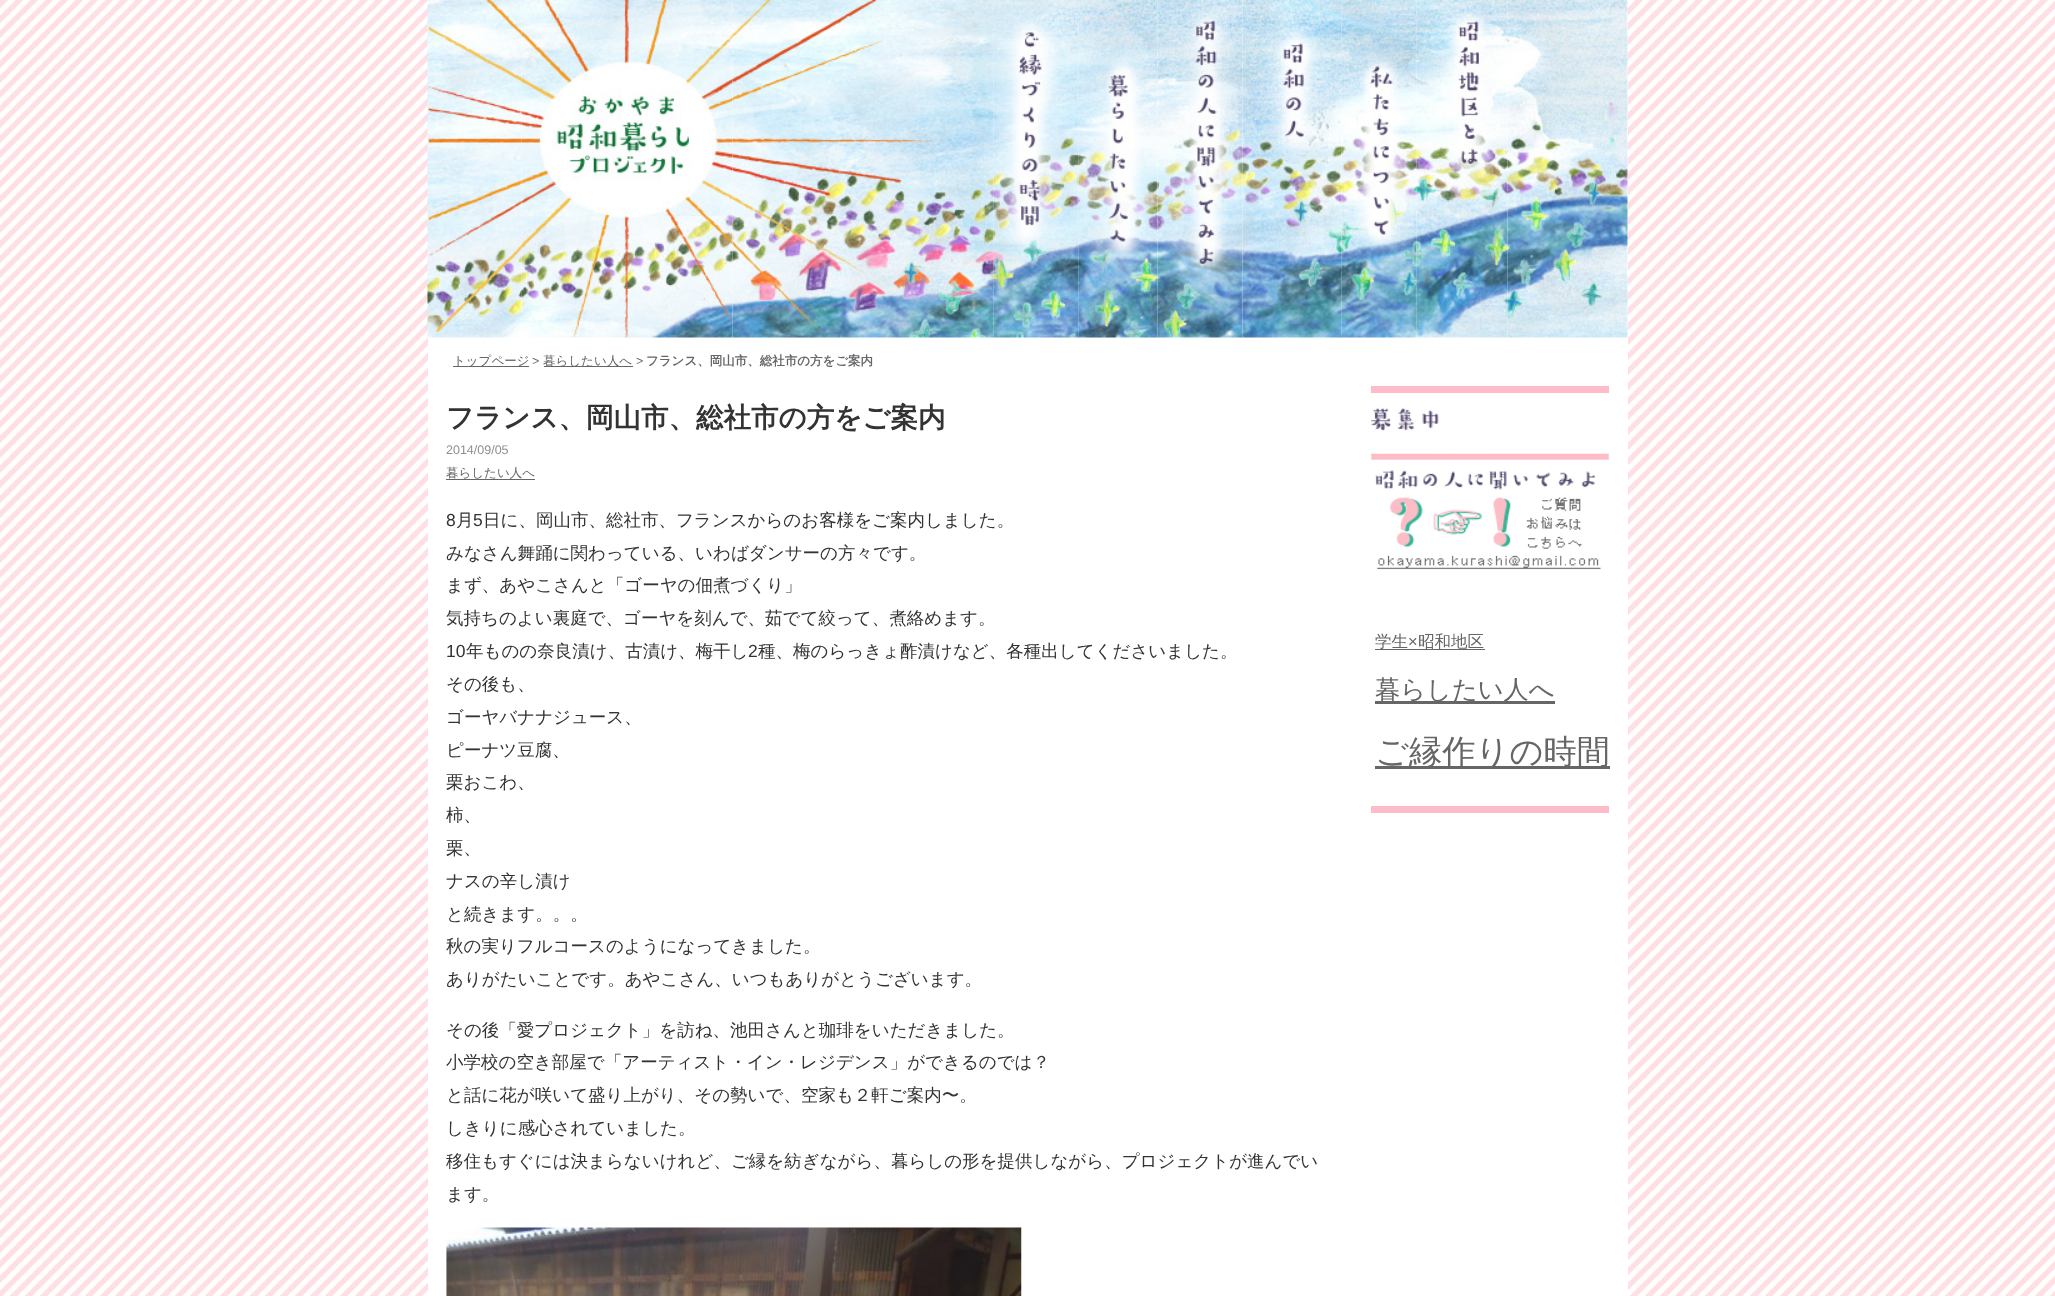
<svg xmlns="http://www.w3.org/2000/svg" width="2055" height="1296">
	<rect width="100%" height="100%" fill="#FFFFFF" />
	<image x="0" y="0" width="2055" height="1296" href="assets/img1.png" />
	<rect x="428" y="0" width="1200" height="1296" fill="#FFFFFF" />
	<image x="427" y="0" width="95" height="338" href="assets/img2.png" />
	<image x="521" y="0" width="212" height="338" href="assets/img3.png" />
	<image x="732" y="0" width="262" height="338" href="assets/img4.png" />
	<image x="993" y="0" width="86" height="338" href="assets/img5.png" />
	<image x="1078" y="0" width="80" height="338" href="assets/img6.png" />
	<image x="1157" y="0" width="86" height="338" href="assets/img7.png" />
	<image x="1242" y="0" width="100" height="338" href="assets/img8.png" />
	<image x="1341" y="0" width="76" height="338" href="assets/img9.png" />
	<image x="1416" y="0" width="92" height="338" href="assets/img10.png" />
	<image x="1507" y="0" width="121" height="338" href="assets/img11.png" />
	<rect x="453" y="366" width="76" height="1" fill="#666666" />
	<text x="453" y="365" font-family="WenQuanYi Zen Hei" font-size="12.5" font-weight="500" fill="#666666">トップページ</text>
	<text x="532" y="365" font-family="Liberation Sans" font-size="12.5" fill="#666666">&gt;</text>
	<rect x="544" y="366" width="89" height="1" fill="#666666" />
	<text x="543" y="365" font-family="WenQuanYi Zen Hei" font-size="12.5" font-weight="500" fill="#666666">暮らしたい人へ</text>
	<text x="636" y="365" font-family="Liberation Sans" font-size="12.5" fill="#666666">&gt;</text>
	<text x="646" y="365" font-family="WenQuanYi Zen Hei" font-size="12.5" font-weight="700" fill="#666666">フランス、岡山市、総社市の方をご案内</text>
	<text x="446" y="427" font-family="WenQuanYi Zen Hei" font-size="27.5" font-weight="700" fill="#333333">フランス、岡山市、総社市の方をご案内</text>
	<text x="446" y="454" font-family="Liberation Sans" font-size="12.5" fill="#8F8F8F">2014/09/05</text>
	<text x="446" y="477" font-family="WenQuanYi Zen Hei" font-size="12.5" font-weight="500" fill="#666666">暮らしたい人へ</text>
	<rect x="446" y="479" width="89" height="1" fill="#666666" />
	<text x="446" y="526" font-family="Liberation Sans" font-size="17.5" fill="#333333">8</text>
	<text x="456" y="526" font-family="WenQuanYi Zen Hei" font-size="17.5" font-weight="500" fill="#333333">月</text>
	<text x="473" y="526" font-family="Liberation Sans" font-size="17.5" fill="#333333">5</text>
	<g font-family="WenQuanYi Zen Hei" font-size="17.5" font-weight="500" fill="#333333">
		<text x="483" y="526">日に、岡山市、総社市、フランスからのお客様をご案内しました。</text>
		<text x="446" y="559">みなさん舞踊に関わっている、いわばダンサーの方々です。</text>
		<text x="446" y="591">まず、あやこさんと「ゴーヤの佃煮づくり」</text>
		<text x="446" y="624">気持ちのよい裏庭で、ゴーヤを刻んで、茹でて絞って、煮絡めます。</text>
	</g>
	<text x="446" y="657" font-family="Liberation Sans" font-size="17.5" fill="#333333">10</text>
	<text x="466" y="657" font-family="WenQuanYi Zen Hei" font-size="17.5" font-weight="500" fill="#333333">年ものの奈良漬け、古漬け、梅干し</text>
	<text x="748" y="657" font-family="Liberation Sans" font-size="17.5" fill="#333333">2</text>
	<g font-family="WenQuanYi Zen Hei" font-size="17.5" font-weight="500" fill="#333333">
		<text x="758" y="657">種、梅のらっきょ酢漬けなど、各種出してくださいました。</text>
		<text x="446" y="690">その後も、</text>
		<text x="446" y="723">ゴーヤバナナジュース、</text>
		<text x="446" y="756">ピーナツ豆腐、</text>
		<text x="446" y="788">栗おこわ、</text>
		<text x="446" y="821">柿、</text>
		<text x="446" y="854">栗、</text>
		<text x="446" y="887">ナスの辛し漬け</text>
		<text x="446" y="920">と続きます。。。</text>
		<text x="446" y="952">秋の実りフルコースのようになってきました。</text>
		<text x="446" y="985">ありがたいことです。あやこさん、いつもありがとうございます。</text>
		<text x="446" y="1036">その後「愛プロジェクト」を訪ね、池田さんと珈琲をいただきました。</text>
		<text x="446" y="1068">小学校の空き部屋で「アーティスト・イン・レジデンス」ができるのでは？</text>
		<text x="446" y="1101">と話に花が咲いて盛り上がり、その勢いで、空家も２軒ご案内〜。</text>
		<text x="446" y="1134">しきりに感心されていました。</text>
		<text x="446" y="1167">移住もすぐには決まらないけれど、ご縁を紡ぎながら、暮らしの形を提供しながら、プロジェクトが進んでい</text>
		<text x="446" y="1200">ます。</text>
	</g>
	<image x="446" y="1227" width="576" height="69" href="assets/img12.png" />
	<rect x="1371" y="386" width="238" height="7" fill="#FDBDC8" />
	<image x="1371" y="408" width="68" height="23" href="assets/img13.png" />
	<image x="1371" y="453" width="238" height="117" href="assets/img14.png" />
	<rect x="1375" y="649" width="110" height="1" fill="#666666" />
	<text x="1375" y="647" font-family="WenQuanYi Zen Hei" font-size="16.5" font-weight="500" fill="#666666">学生</text>
	<text x="1408" y="647" font-family="Liberation Sans" font-size="16.5" fill="#666666">×</text>
	<text x="1418" y="647" font-family="WenQuanYi Zen Hei" font-size="16.5" font-weight="500" fill="#666666">昭和地区</text>
	<rect x="1375" y="701" width="180" height="3" fill="#666666" />
	<text x="1375" y="698" font-family="WenQuanYi Zen Hei" font-size="25.25" font-weight="500" fill="#666666">暮らしたい人へ</text>
	<rect x="1375" y="766" width="235" height="3" fill="#666666" />
	<text x="1375" y="763" font-family="WenQuanYi Zen Hei" font-size="33.25" font-weight="500" fill="#666666">ご縁作りの時間</text>
	<rect x="1371" y="806" width="238" height="7" fill="#FDBDC8" />
</svg>
